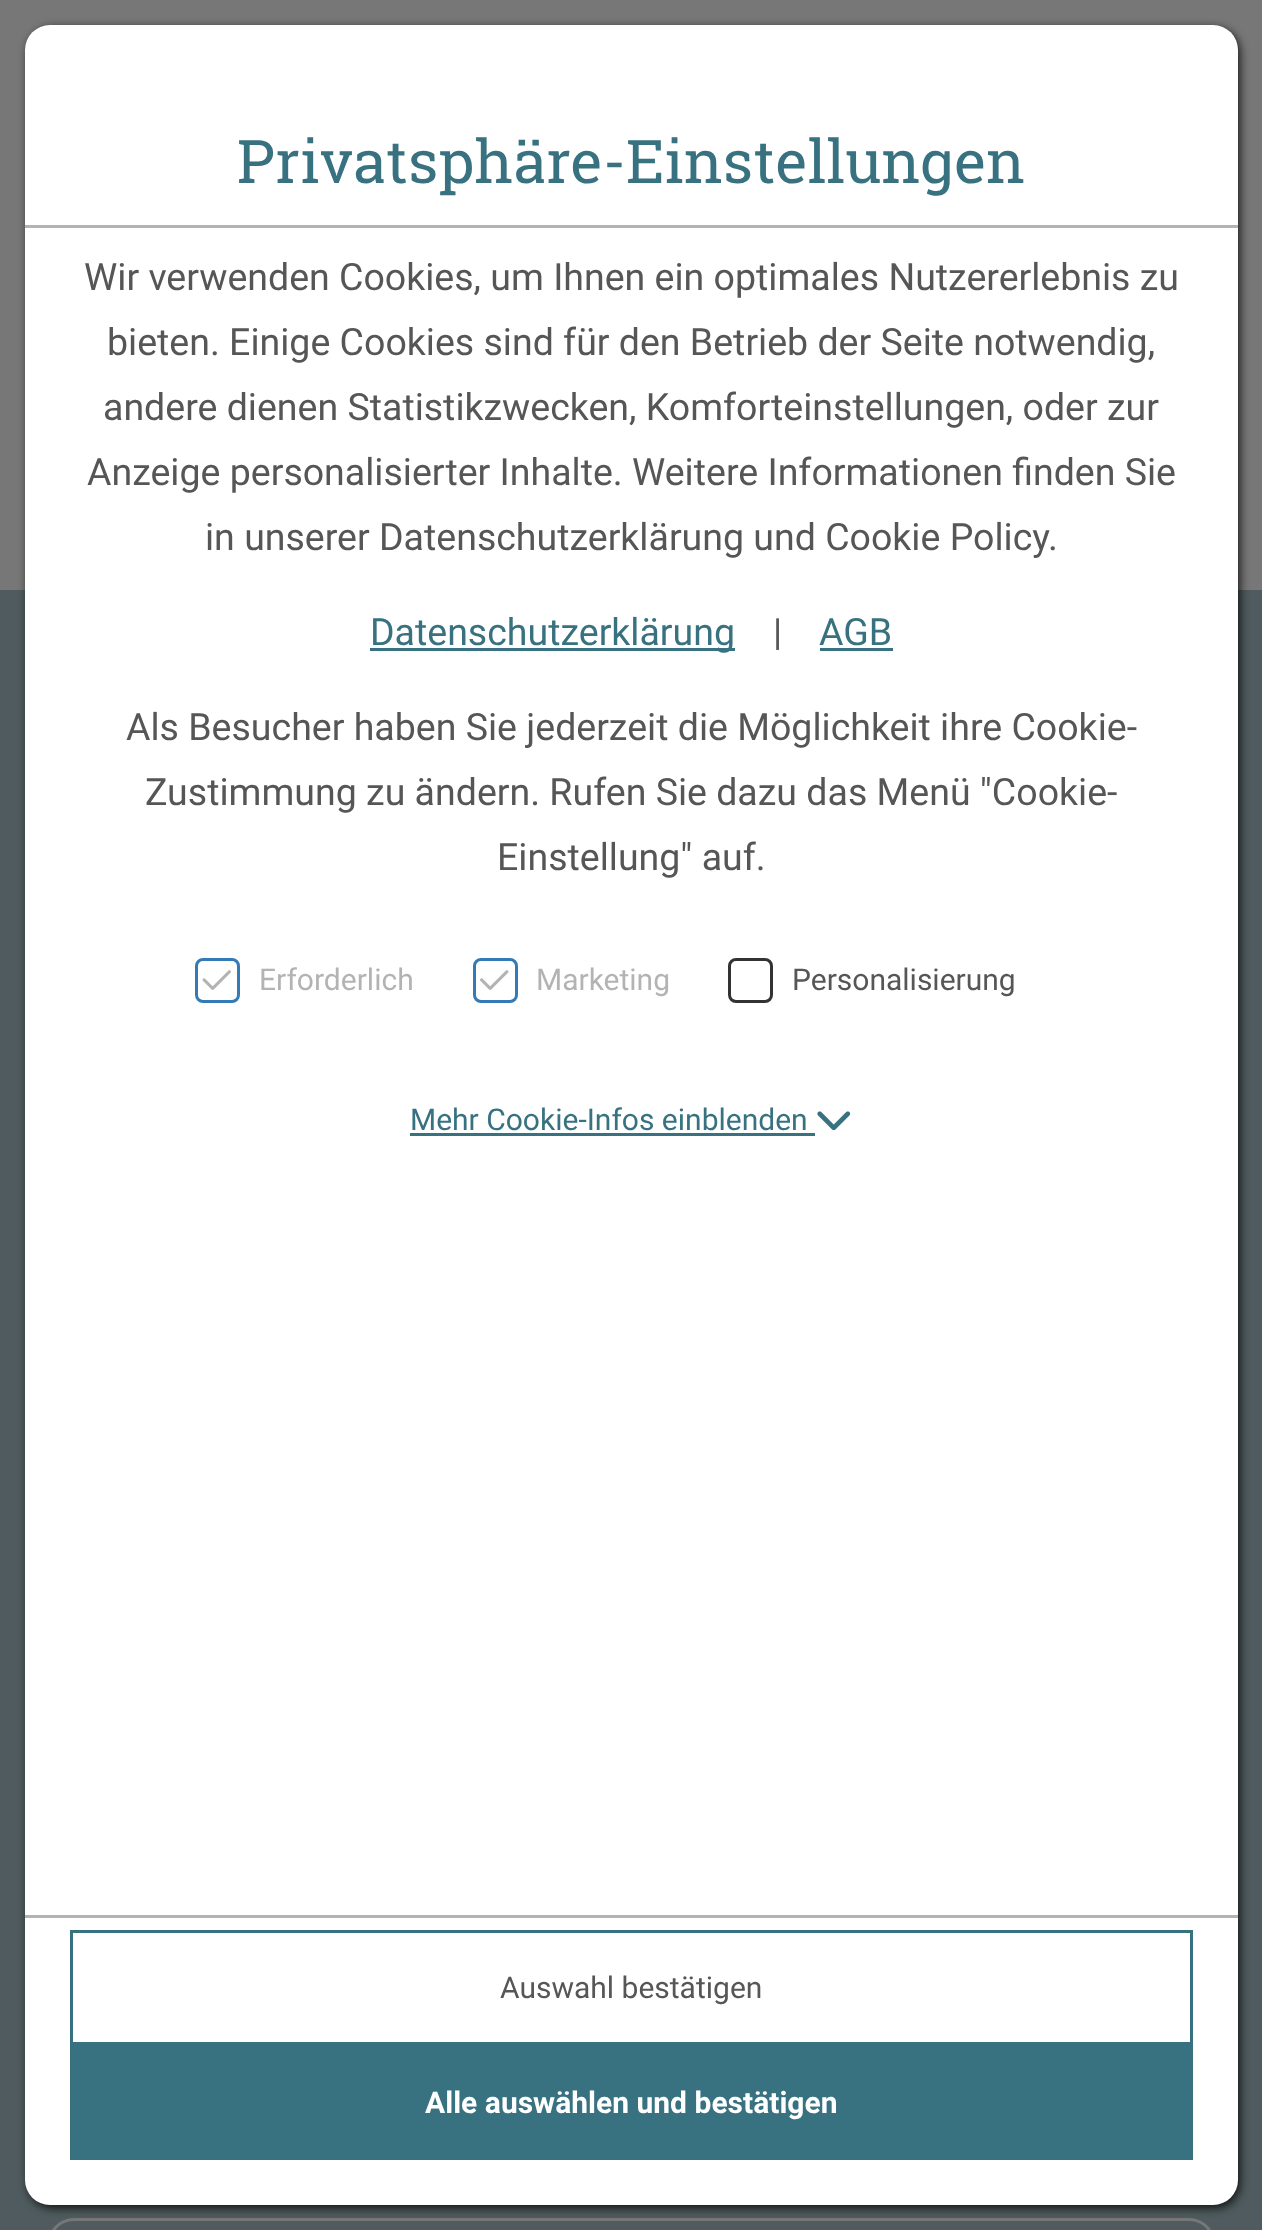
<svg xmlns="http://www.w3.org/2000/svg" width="1262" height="2230">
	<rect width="100%" height="100%" fill="#777777" />
	<rect x="0" y="590" width="1262" height="1640" fill="#4F5B5E" />
	<rect x="51.5" y="2219.5" width="1160" height="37" rx="23.5" fill="none" stroke="#777777" stroke-width="3" />
	<rect x="28" y="28" width="1212" height="2180" rx="25" fill="#000000" fill-opacity="0.8" filter="blur(5px)" />
	<rect x="25" y="25" width="1213" height="2180" rx="25" fill="#FFFFFF" />
	<text x="237" y="183" font-family="Roboto Slab" font-size="60" fill="#387280">Privatsphäre-Einstellungen</text>
	<rect x="25" y="225" width="1213" height="3" fill="#B3B3B3" />
	<g font-family="Roboto" font-size="37.5" fill="#565656">
		<text x="84" y="290">Wir verwenden Cookies, um Ihnen ein optimales Nutzererlebnis zu</text>
		<text x="107" y="355">bieten. Einige Cookies sind für den Betrieb der Seite notwendig,</text>
		<text x="103" y="420">andere dienen Statistikzwecken, Komforteinstellungen, oder zur</text>
		<text x="87" y="485">Anzeige personalisierter Inhalte. Weitere Informationen finden Sie</text>
		<text x="205" y="550">in unserer Datenschutzerklärung und Cookie Policy.</text>
	</g>
	<rect x="370" y="648" width="365" height="3" fill="#387280" />
	<text x="370" y="645" font-family="Roboto" font-size="37.5" fill="#387280">Datenschutzerklärung</text>
	<text x="773" y="645" font-family="Roboto" font-size="37.5" fill="#565656">|</text>
	<text x="819" y="645" font-family="Roboto" font-size="37.5" fill="#387280">AGB</text>
	<rect x="820" y="648" width="73" height="3" fill="#387280" />
	<g font-family="Roboto" font-size="37.5" fill="#565656">
		<text x="126" y="740">Als Besucher haben Sie jederzeit die Möglichkeit ihre Cookie-</text>
		<text x="145" y="805">Zustimmung zu ändern. Rufen Sie dazu das Menü "Cookie-</text>
		<text x="497" y="870">Einstellung" auf.</text>
	</g>
	<rect x="196.5" y="959.5" width="42" height="42" rx="6.5" fill="none" stroke="#337AB7" stroke-width="3" />
	<image x="202" y="970" width="29" height="20" href="assets/img1.png" />
	<text x="259" y="990" font-family="Roboto" font-size="30" fill="#B3B3B3">Erforderlich</text>
	<rect x="474.5" y="959.5" width="42" height="42" rx="6.5" fill="none" stroke="#337AB7" stroke-width="3" />
	<image x="480" y="970" width="29" height="20" href="assets/img2.png" />
	<text x="536" y="990" font-family="Roboto" font-size="30" fill="#B3B3B3">Marketing</text>
	<rect x="729.5" y="959.5" width="42" height="42" rx="6.5" fill="none" stroke="#333333" stroke-width="3" />
	<text x="792" y="990" font-family="Roboto" font-size="30" fill="#565656">Personalisierung</text>
	<text x="410" y="1130" font-family="Roboto" font-size="30" fill="#387280">Mehr Cookie-Infos einblenden</text>
	<rect x="410" y="1133" width="405" height="3" fill="#387280" />
	<image x="817" y="1111" width="34" height="20" href="assets/img3.png" />
	<rect x="25" y="1915" width="1213" height="3" fill="#B3B3B3" />
	<rect x="71.5" y="1931.5" width="1120" height="112" fill="none" stroke="#387280" stroke-width="3" />
	<text x="500" y="1998" font-family="Roboto" font-size="30" fill="#565656">Auswahl bestätigen</text>
	<rect x="70" y="2045" width="1123" height="115" fill="#387280" />
	<text x="425" y="2113" font-family="Roboto" font-size="30" font-weight="700" fill="#FFFFFF">Alle auswählen und bestätigen</text>
</svg>
